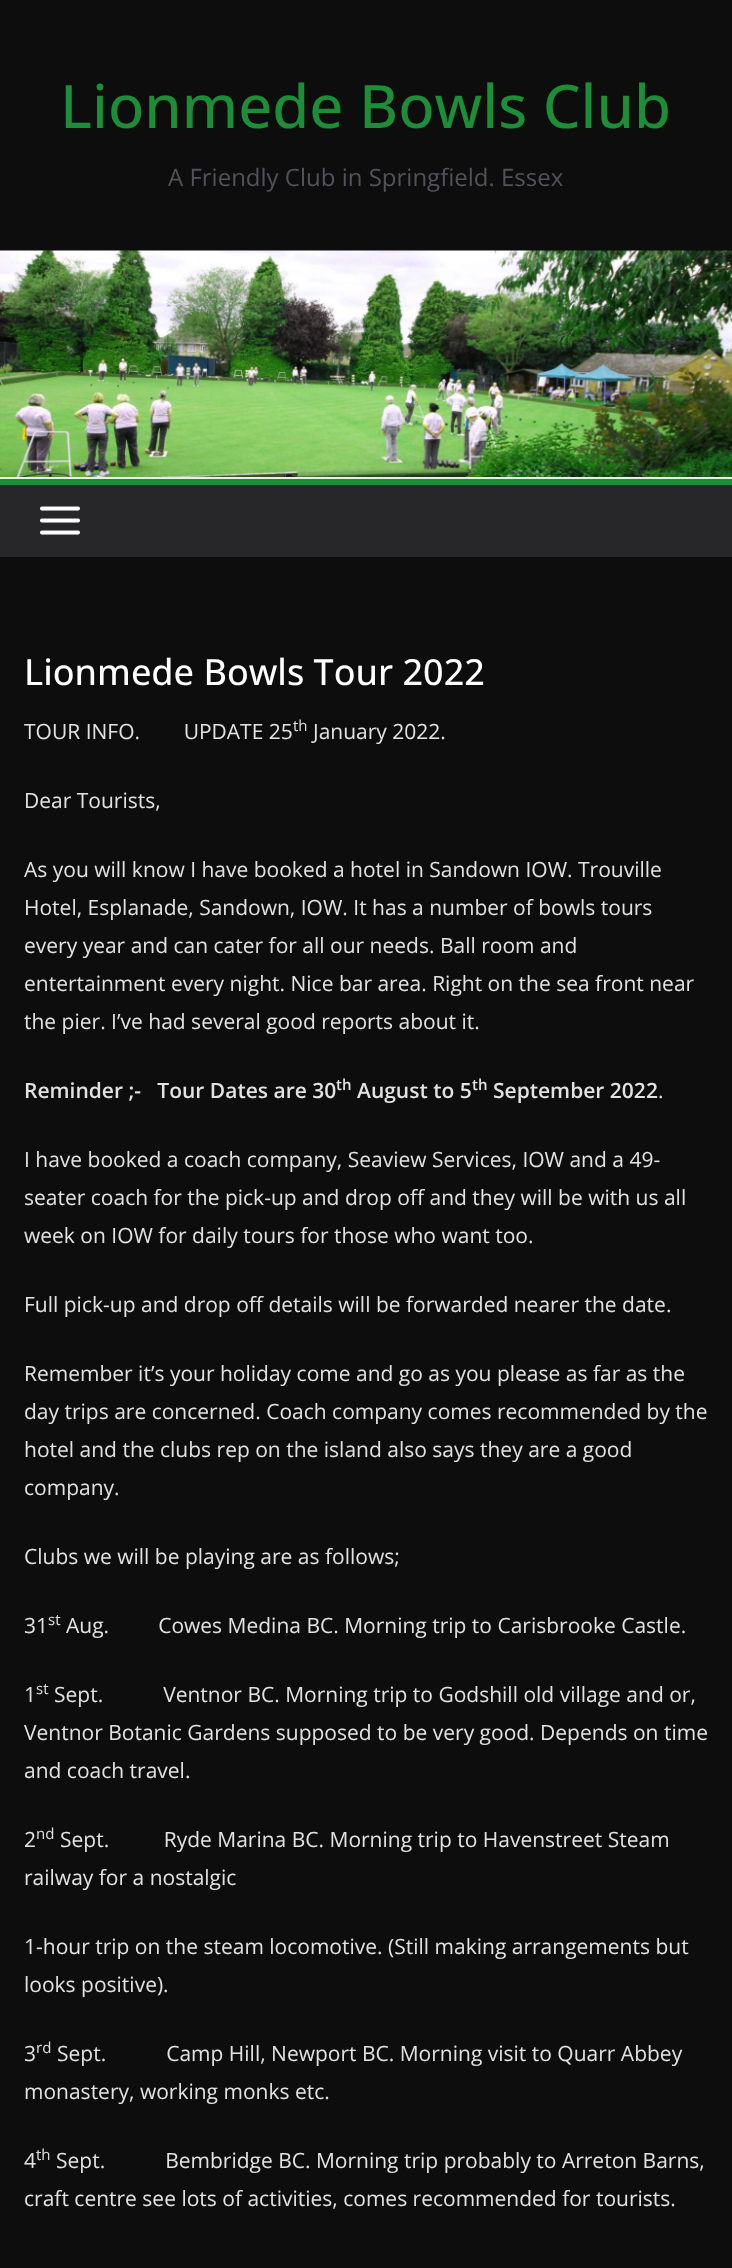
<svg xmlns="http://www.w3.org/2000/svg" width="732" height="2268">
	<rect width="100%" height="100%" fill="#0D0D0D" />
	<text x="60" y="128" font-family="Open Sans" font-size="60" font-weight="500" fill="#1C8E37">Lionmede Bowls Club</text>
	<text x="168" y="186" font-family="Open Sans" font-size="24" fill="#52525B">A Friendly Club in Springfield. Essex</text>
	<image x="0" y="250" width="732" height="227" href="assets/img1.png" />
	<rect x="0" y="477" width="732" height="2" fill="#EBEBEB" />
	<rect x="0" y="485" width="732" height="72" fill="#27272A" />
	<rect x="0" y="479" width="732" height="6" fill="#1C8E37" />
	<image x="40" y="506" width="40" height="29" href="assets/img2.png" />
	<text x="24" y="685" font-family="Open Sans" font-size="36" font-weight="500" fill="#FFFFFF">Lionmede Bowls Tour 2022</text>
	<text x="24" y="739" font-family="Open Sans" font-size="21" fill="#E3E2E2" xml:space="preserve">TOUR INFO.        UPDATE 25</text>
	<text x="293" y="731" font-family="Open Sans" font-size="15" fill="#E3E2E2">th</text>
	<g font-family="Open Sans" font-size="21" fill="#E3E2E2">
		<text x="313" y="739">January 2022.</text>
		<text x="24" y="808">Dear Tourists,</text>
		<text x="24" y="877">As you will know I have booked a hotel in Sandown IOW. Trouville</text>
		<text x="24" y="915">Hotel, Esplanade, Sandown, IOW. It has a number of bowls tours</text>
		<text x="24" y="953">every year and can cater for all our needs. Ball room and</text>
		<text x="24" y="991">entertainment every night. Nice bar area. Right on the sea front near</text>
		<text x="24" y="1029">the pier. I’ve had several good reports about it.</text>
	</g>
	<text x="24" y="1098" font-family="Open Sans" font-size="21" font-weight="600" fill="#E3E2E2" xml:space="preserve">Reminder ;-   Tour Dates are 30</text>
	<text x="336" y="1090" font-family="Open Sans" font-size="15" font-weight="600" fill="#E3E2E2">th</text>
	<text x="357" y="1098" font-family="Open Sans" font-size="21" font-weight="600" fill="#E3E2E2">August to 5</text>
	<text x="472" y="1090" font-family="Open Sans" font-size="15" font-weight="600" fill="#E3E2E2">th</text>
	<text x="493" y="1098" font-family="Open Sans" font-size="21" font-weight="600" fill="#E3E2E2">September 2022</text>
	<g font-family="Open Sans" font-size="21" fill="#E3E2E2">
		<text x="658" y="1098">.</text>
		<text x="24" y="1167">I have booked a coach company, Seaview Services, IOW and a 49-</text>
		<text x="24" y="1205">seater coach for the pick-up and drop off and they will be with us all</text>
		<text x="24" y="1243">week on IOW for daily tours for those who want too.</text>
		<text x="24" y="1312">Full pick-up and drop off details will be forwarded nearer the date.</text>
		<text x="24" y="1381">Remember it’s your holiday come and go as you please as far as the</text>
		<text x="24" y="1419">day trips are concerned. Coach company comes recommended by the</text>
		<text x="24" y="1457">hotel and the clubs rep on the island also says they are a good</text>
		<text x="24" y="1495">company.</text>
		<text x="24" y="1564">Clubs we will be playing are as follows;</text>
		<text x="24" y="1633">31</text>
	</g>
	<text x="48" y="1625" font-family="Open Sans" font-size="15" fill="#E3E2E2">st</text>
	<g font-family="Open Sans" font-size="21" fill="#E3E2E2">
		<text x="66" y="1633" xml:space="preserve">Aug.         Cowes Medina BC. Morning trip to Carisbrooke Castle.</text>
		<text x="24" y="1702">1</text>
	</g>
	<text x="36" y="1694" font-family="Open Sans" font-size="15" fill="#E3E2E2">st</text>
	<g font-family="Open Sans" font-size="21" fill="#E3E2E2">
		<text x="54" y="1702" xml:space="preserve">Sept.           Ventnor BC. Morning trip to Godshill old village and or,</text>
		<text x="24" y="1740">Ventnor Botanic Gardens supposed to be very good. Depends on time</text>
		<text x="24" y="1778">and coach travel.</text>
		<text x="24" y="1847">2</text>
	</g>
	<text x="36" y="1839" font-family="Open Sans" font-size="15" fill="#E3E2E2">nd</text>
	<g font-family="Open Sans" font-size="21" fill="#E3E2E2">
		<text x="60" y="1847" xml:space="preserve">Sept.          Ryde Marina BC. Morning trip to Havenstreet Steam</text>
		<text x="24" y="1885">railway for a nostalgic</text>
		<text x="24" y="1954">1-hour trip on the steam locomotive. (Still making arrangements but</text>
		<text x="24" y="1992">looks positive).</text>
		<text x="24" y="2061">3</text>
	</g>
	<text x="36" y="2053" font-family="Open Sans" font-size="15" fill="#E3E2E2">rd</text>
	<g font-family="Open Sans" font-size="21" fill="#E3E2E2">
		<text x="57" y="2061" xml:space="preserve">Sept.           Camp Hill, Newport BC. Morning visit to Quarr Abbey</text>
		<text x="24" y="2099">monastery, working monks etc.</text>
		<text x="24" y="2168">4</text>
	</g>
	<text x="36" y="2160" font-family="Open Sans" font-size="15" fill="#E3E2E2">th</text>
	<g font-family="Open Sans" font-size="21" fill="#E3E2E2">
		<text x="56" y="2168" xml:space="preserve">Sept.           Bembridge BC. Morning trip probably to Arreton Barns,</text>
		<text x="24" y="2206">craft centre see lots of activities, comes recommended for tourists.</text>
	</g>
</svg>
